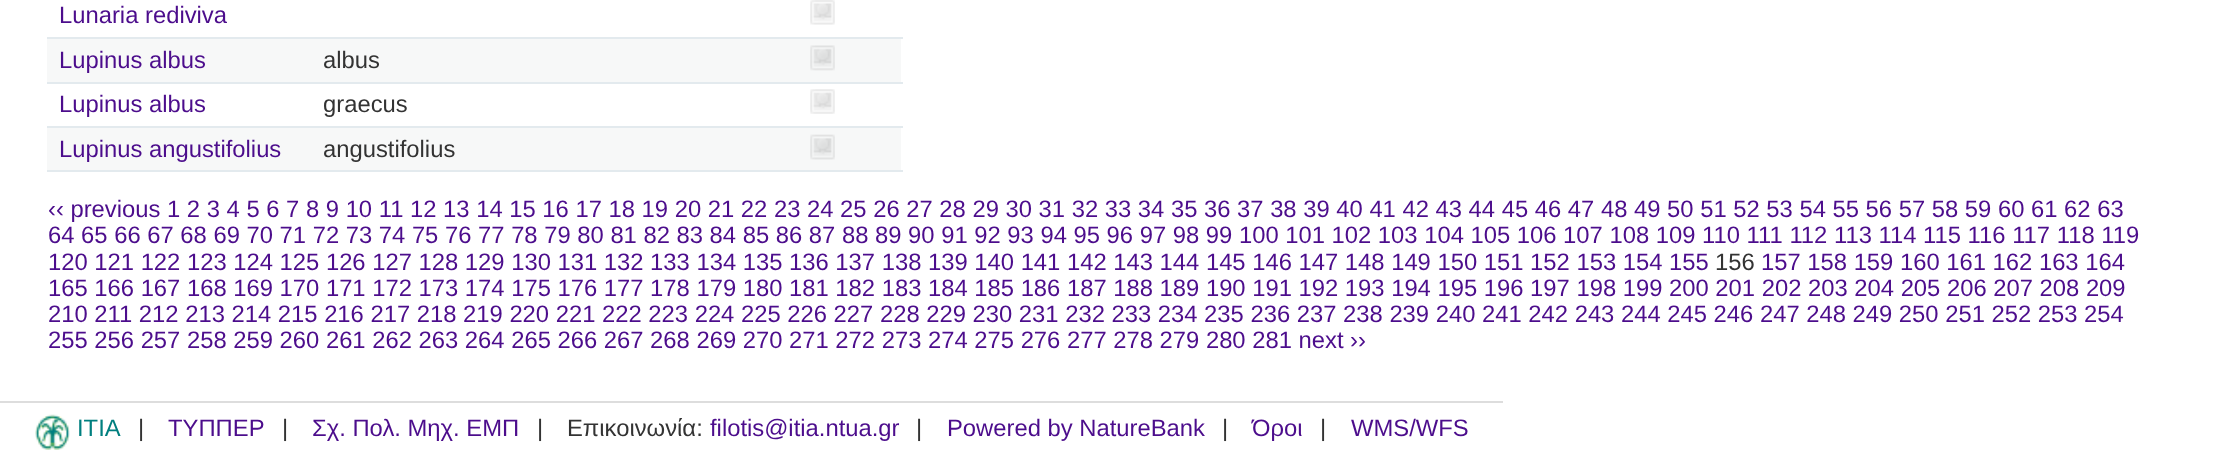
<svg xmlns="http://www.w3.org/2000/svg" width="2222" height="466">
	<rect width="100%" height="100%" fill="#FFFFFF" />
	<rect x="47" y="37" width="856" height="2" fill="#E3EAEE" />
	<image x="810" y="0" width="25" height="25" href="assets/img1.png" />
	<text x="59" y="23" font-family="Liberation Sans" font-size="23.8" fill="#4C0D8C">Lunaria rediviva</text>
	<rect x="47" y="82" width="856" height="2" fill="#E3EAEE" />
	<rect x="47" y="39" width="854" height="43" fill="#F7F8F8" />
	<image x="810" y="45" width="25" height="26" href="assets/img2.png" />
	<text x="59" y="68" font-family="Liberation Sans" font-size="23.8" fill="#4C0D8C">Lupinus albus</text>
	<text x="323" y="68" font-family="Liberation Sans" font-size="23.8" fill="#333333">albus</text>
	<rect x="47" y="126" width="856" height="2" fill="#E3EAEE" />
	<image x="810" y="89" width="25" height="25" href="assets/img3.png" />
	<text x="59" y="112" font-family="Liberation Sans" font-size="23.8" fill="#4C0D8C">Lupinus albus</text>
	<text x="323" y="112" font-family="Liberation Sans" font-size="23.8" fill="#333333">graecus</text>
	<rect x="47" y="170" width="856" height="2" fill="#E3EAEE" />
	<rect x="47" y="128" width="854" height="42" fill="#F7F8F8" />
	<image x="810" y="134" width="25" height="26" href="assets/img4.png" />
	<text x="59" y="157" font-family="Liberation Sans" font-size="23.8" fill="#4C0D8C">Lupinus angustifolius</text>
	<text x="323" y="157" font-family="Liberation Sans" font-size="23.8" fill="#333333">angustifolius</text>
	<g font-family="Liberation Sans" font-size="23.8" fill="#4C0D8C">
		<text x="48" y="217">‹‹ previous 1 2 3 4 5 6 7 8 9 10 11 12 13 14 15 16 17 18 19 20 21 22 23 24 25 26 27 28 29 30 31 32 33 34 35 36 37 38 39 40 41 42 43 44 45 46 47 48 49 50 51 52 53 54 55 56 57 58 59 60 61 62 63</text>
		<text x="48" y="243">64 65 66 67 68 69 70 71 72 73 74 75 76 77 78 79 80 81 82 83 84 85 86 87 88 89 90 91 92 93 94 95 96 97 98 99 100 101 102 103 104 105 106 107 108 109 110 111 112 113 114 115 116 117 118 119</text>
		<text x="48" y="270">120 121 122 123 124 125 126 127 128 129 130 131 132 133 134 135 136 137 138 139 140 141 142 143 144 145 146 147 148 149 150 151 152 153 154 155</text>
	</g>
	<text x="1715" y="270" font-family="Liberation Sans" font-size="23.8" fill="#333333">156</text>
	<g font-family="Liberation Sans" font-size="23.8" fill="#4C0D8C">
		<text x="1761" y="270">157 158 159 160 161 162 163 164</text>
		<text x="48" y="296">165 166 167 168 169 170 171 172 173 174 175 176 177 178 179 180 181 182 183 184 185 186 187 188 189 190 191 192 193 194 195 196 197 198 199 200 201 202 203 204 205 206 207 208 209</text>
		<text x="48" y="322">210 211 212 213 214 215 216 217 218 219 220 221 222 223 224 225 226 227 228 229 230 231 232 233 234 235 236 237 238 239 240 241 242 243 244 245 246 247 248 249 250 251 252 253 254</text>
		<text x="48" y="348">255 256 257 258 259 260 261 262 263 264 265 266 267 268 269 270 271 272 273 274 275 276 277 278 279 280 281 next ››</text>
	</g>
	<rect x="0" y="401" width="1503" height="2" fill="#DDDDDD" />
	<image x="35" y="414" width="35" height="36" href="assets/img5.png" />
	<text x="77" y="436" font-family="Liberation Sans" font-size="23.8" fill="#007F7F">ITIA</text>
	<text x="138" y="436" font-family="Liberation Sans" font-size="23.8" fill="#333333">|</text>
	<text x="168" y="436" font-family="Liberation Sans" font-size="23.8" fill="#4C0D8C">ΤΥΠΠΕΡ</text>
	<text x="282" y="436" font-family="Liberation Sans" font-size="23.8" fill="#333333">|</text>
	<text x="312" y="436" font-family="Liberation Sans" font-size="23.8" fill="#4C0D8C">Σχ. Πολ. Μηχ. ΕΜΠ</text>
	<g font-family="Liberation Sans" font-size="23.8" fill="#333333">
		<text x="537" y="436">|</text>
		<text x="567" y="436">Επικοινωνία:</text>
	</g>
	<text x="710" y="436" font-family="Liberation Sans" font-size="23.8" fill="#4C0D8C">filotis@itia.ntua.gr</text>
	<text x="916" y="436" font-family="Liberation Sans" font-size="23.8" fill="#333333">|</text>
	<text x="947" y="436" font-family="Liberation Sans" font-size="23.8" fill="#4C0D8C">Powered by NatureBank</text>
	<text x="1222" y="436" font-family="Liberation Sans" font-size="23.8" fill="#333333">|</text>
	<text x="1252" y="436" font-family="Liberation Sans" font-size="23.8" fill="#4C0D8C">Όροι</text>
	<text x="1320" y="436" font-family="Liberation Sans" font-size="23.8" fill="#333333">|</text>
	<text x="1351" y="436" font-family="Liberation Sans" font-size="23.8" fill="#4C0D8C">WMS/WFS</text>
</svg>
